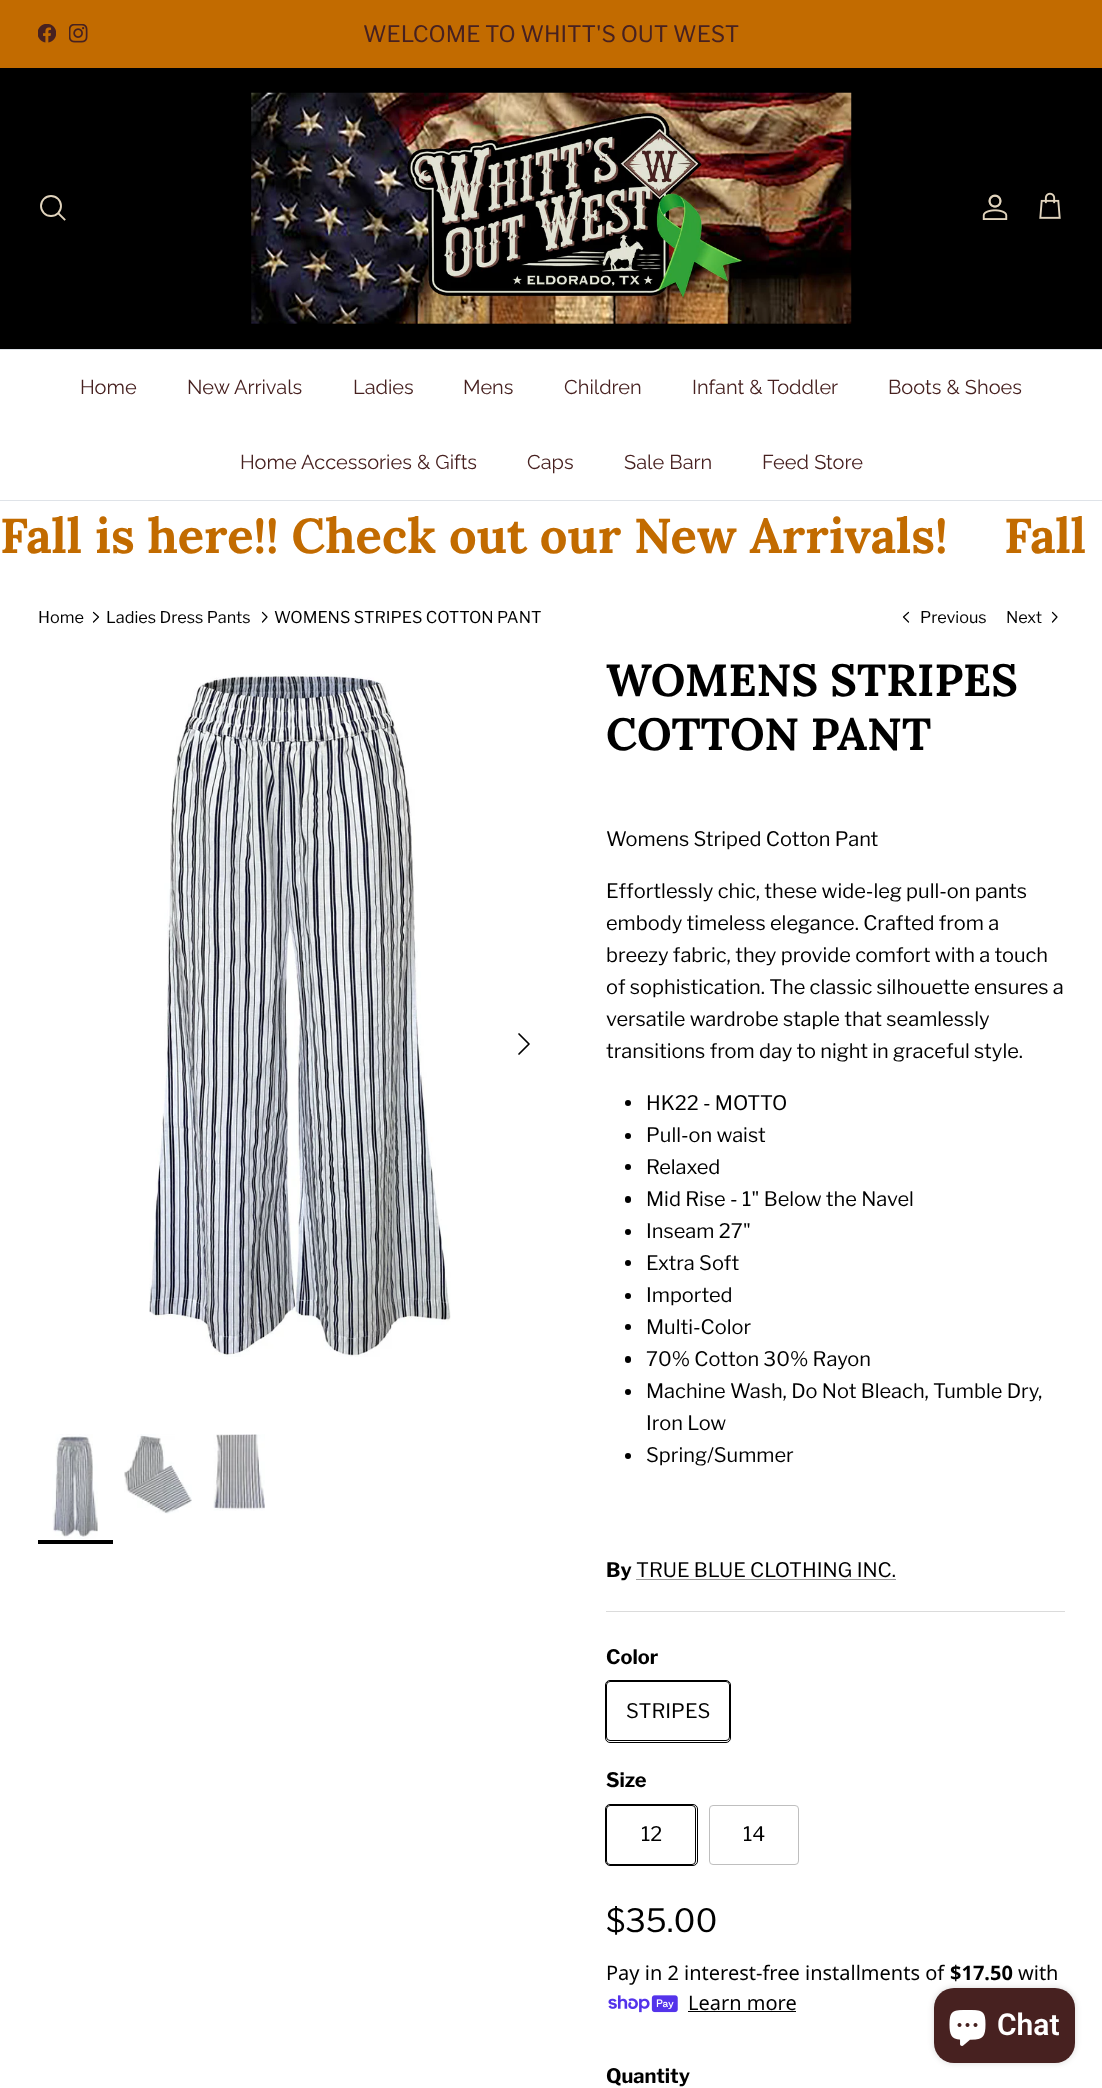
<svg xmlns="http://www.w3.org/2000/svg" width="1102" height="2088">
	<rect width="100%" height="100%" fill="#FFFFFF" />
	<rect x="0" y="0" width="1102" height="68" fill="#C26B00" />
	<image x="38" y="24" width="18" height="19" href="assets/img1.png" />
	<image x="69" y="24" width="19" height="19" href="assets/img2.png" />
	<text x="363" y="42" font-family="Libre Franklin" font-size="22.5" fill="#472120">WELCOME TO WHITT'S OUT WEST</text>
	<rect x="0" y="68" width="1102" height="281" fill="#000000" />
	<rect x="0" y="349" width="1102" height="1" fill="#DFE3E8" />
	<circle cx="51" cy="206" r="10" fill="none" stroke="#E1D4BD" stroke-width="1.9" />
	<path d="M58.5 213.5L64.5 219.5" fill="none" stroke="#E1D4BD" stroke-width="1.9" stroke-linecap="square" />
	<image x="251" y="92" width="601" height="232" href="assets/img3.png" />
	<image x="982" y="194" width="26" height="26" href="assets/img4.png" />
	<image x="1039" y="192" width="22" height="27" href="assets/img5.png" />
	<rect x="0" y="500" width="1102" height="1" fill="#DFE3E8" />
	<g font-family="Raleway" font-size="20" fill="#472120">
		<text x="80" y="394">Home</text>
		<text x="187" y="394">New Arrivals</text>
		<text x="353" y="394">Ladies</text>
		<text x="463" y="394">Mens</text>
		<text x="564" y="394">Children</text>
		<text x="692" y="394">Infant &amp; Toddler</text>
		<text x="888" y="394">Boots &amp; Shoes</text>
		<text x="240" y="469">Home Accessories &amp; Gifts</text>
		<text x="527" y="469">Caps</text>
		<text x="624" y="469">Sale Barn</text>
		<text x="762" y="469">Feed Store</text>
	</g>
	<g font-family="Lora" font-size="48.9" font-weight="700" fill="#C26B00">
		<text x="0" y="553">Fall is here!! Check out our New Arrivals!</text>
		<text x="1004" y="553">Fall</text>
	</g>
	<text x="38" y="623" font-family="Libre Franklin" font-size="16.25" fill="#000000">Home</text>
	<path d="M93.5 622L98.5 617L93.5 612.5" fill="none" stroke="#000000" stroke-width="1.2" stroke-linecap="round" stroke-linejoin="round" />
	<text x="106" y="623" font-family="Libre Franklin" font-size="16.25" fill="#000000">Ladies Dress Pants</text>
	<path d="M262.5 622L267 617L262.5 612.5" fill="none" stroke="#000000" stroke-width="1.2" stroke-linecap="round" stroke-linejoin="round" />
	<text x="274" y="623" font-family="Libre Franklin" font-size="16.25" fill="#000000">WOMENS STRIPES COTTON PANT</text>
	<path d="M908.5 622L903.5 617L908.5 612.5" fill="none" stroke="#000000" stroke-width="1.2" stroke-linecap="round" stroke-linejoin="round" />
	<g font-family="Libre Franklin" font-size="16.25" fill="#000000">
		<text x="920" y="623">Previous</text>
		<text x="1006" y="623">Next</text>
	</g>
	<path d="M1052.5 622L1057 617L1052.5 612.5" fill="none" stroke="#000000" stroke-width="1.2" stroke-linecap="round" stroke-linejoin="round" />
	<image x="149" y="674" width="302" height="683" href="assets/img6.png" />
	<path d="M519 1054L529 1044L519 1034" fill="none" stroke="#000000" stroke-width="1.7" stroke-linecap="round" stroke-linejoin="round" />
	<image x="52" y="1434" width="46" height="105" href="assets/img7.png" />
	<rect x="38" y="1540" width="75" height="4" fill="#000000" />
	<image x="124" y="1434" width="68" height="80" href="assets/img8.png" />
	<image x="213" y="1434" width="52" height="77" href="assets/img9.png" />
	<g font-family="Lora" font-size="45" font-weight="700" fill="#000000">
		<text x="606" y="696">WOMENS STRIPES</text>
		<text x="606" y="750">COTTON PANT</text>
	</g>
	<g font-family="Libre Franklin" font-size="20" fill="#000000">
		<text x="606" y="846">Womens Striped Cotton Pant</text>
		<text x="606" y="898">Effortlessly chic, these wide-leg pull-on pants</text>
		<text x="606" y="930">embody timeless elegance. Crafted from a</text>
		<text x="606" y="962">breezy fabric, they provide comfort with a touch</text>
		<text x="606" y="994">of sophistication. The classic silhouette ensures a</text>
		<text x="606" y="1026">versatile wardrobe staple that seamlessly</text>
		<text x="606" y="1058">transitions from day to night in graceful style.</text>
	</g>
	<circle cx="628" cy="1103" r="3" fill="#000000" />
	<text x="646" y="1110" font-family="Libre Franklin" font-size="20" fill="#000000">HK22 - MOTTO</text>
	<circle cx="628" cy="1136" r="3" fill="#000000" />
	<text x="646" y="1142" font-family="Libre Franklin" font-size="20" fill="#000000">Pull-on waist</text>
	<circle cx="628" cy="1167" r="3" fill="#000000" />
	<text x="646" y="1174" font-family="Libre Franklin" font-size="20" fill="#000000">Relaxed</text>
	<rect x="625" y="1196" width="6" height="7" rx="3" fill="#000000" />
	<text x="646" y="1206" font-family="Libre Franklin" font-size="20" fill="#000000">Mid Rise - 1" Below the Navel</text>
	<circle cx="628" cy="1232" r="3" fill="#000000" />
	<text x="646" y="1238" font-family="Libre Franklin" font-size="20" fill="#000000">Inseam 27"</text>
	<circle cx="628" cy="1263" r="3" fill="#000000" />
	<text x="646" y="1270" font-family="Libre Franklin" font-size="20" fill="#000000">Extra Soft</text>
	<circle cx="628" cy="1296" r="3" fill="#000000" />
	<text x="646" y="1302" font-family="Libre Franklin" font-size="20" fill="#000000">Imported</text>
	<circle cx="628" cy="1327" r="3" fill="#000000" />
	<text x="646" y="1334" font-family="Libre Franklin" font-size="20" fill="#000000">Multi-Color</text>
	<rect x="625" y="1356" width="6" height="7" rx="3" fill="#000000" />
	<text x="646" y="1366" font-family="Libre Franklin" font-size="20" fill="#000000">70% Cotton 30% Rayon</text>
	<circle cx="628" cy="1392" r="3" fill="#000000" />
	<g font-family="Libre Franklin" font-size="20" fill="#000000">
		<text x="646" y="1398">Machine Wash, Do Not Bleach, Tumble Dry,</text>
		<text x="646" y="1430">Iron Low</text>
	</g>
	<circle cx="628" cy="1456" r="3" fill="#000000" />
	<text x="646" y="1462" font-family="Libre Franklin" font-size="20" fill="#000000">Spring/Summer</text>
	<text x="606" y="1577" font-family="Libre Franklin" font-size="20" font-weight="700" fill="#000000">By</text>
	<text x="636" y="1577" font-family="Libre Franklin" font-size="20" fill="#000000">TRUE BLUE CLOTHING INC.</text>
	<rect x="636" y="1579" width="260" height="1" fill="#999999" />
	<rect x="606" y="1611" width="459" height="1" fill="#DBDBDB" />
	<text x="606" y="1664" font-family="Libre Franklin" font-size="20" font-weight="700" fill="#000000">Color</text>
	<rect x="605.5" y="1680.5" width="125" height="62" rx="4.5" fill="none" stroke="#000000" />
	<rect x="606.5" y="1681.5" width="123" height="59" rx="3.5" fill="#FFFFFF" stroke="#000000" />
	<text x="626" y="1718" font-family="Libre Franklin" font-size="20" fill="#000000">STRIPES</text>
	<text x="606" y="1787" font-family="Libre Franklin" font-size="20" font-weight="700" fill="#000000">Size</text>
	<rect x="605.5" y="1804.5" width="92" height="61" rx="4.5" fill="none" stroke="#000000" />
	<rect x="606.5" y="1805.5" width="89" height="59" rx="3.5" fill="#FFFFFF" stroke="#000000" />
	<text x="641" y="1841" font-family="Libre Franklin" font-size="20" fill="#000000">12</text>
	<rect x="709.5" y="1805.5" width="89" height="59" rx="3.5" fill="none" stroke="#BFBFBF" />
	<text x="743" y="1841" font-family="Libre Franklin" font-size="20" fill="#000000">14</text>
	<text x="606" y="1932" font-family="Libre Franklin" font-size="32" fill="#000000">$35.00</text>
	<text x="606" y="1980" font-family="Noto Sans" font-size="20" fill="#000000">Pay in 2 interest-free installments of</text>
	<text x="950" y="1980" font-family="Noto Sans" font-size="20" font-weight="700" fill="#000000">$17.50</text>
	<text x="1018" y="1980" font-family="Noto Sans" font-size="20" fill="#000000">with</text>
	<image x="608" y="1995" width="70" height="18" href="assets/img10.png" />
	<text x="688" y="2010" font-family="Noto Sans" font-size="20" fill="#000000">Learn more</text>
	<rect x="688" y="2011" width="108" height="1" fill="#000000" />
	<text x="606" y="2083" font-family="Libre Franklin" font-size="20" font-weight="700" fill="#000000">Quantity</text>
	<rect x="934" y="1988" width="141" height="75" rx="20" fill="#000000" fill-opacity="0.15" filter="blur(3px)" />
	<rect x="934" y="1988" width="141" height="75" rx="20" fill="#472120" />
	<image x="949" y="2010" width="37" height="36" href="assets/img11.png" />
	<text x="997" y="2035" font-family="Roboto" font-size="30" font-weight="600" fill="#FFFFFF">Chat</text>
</svg>
